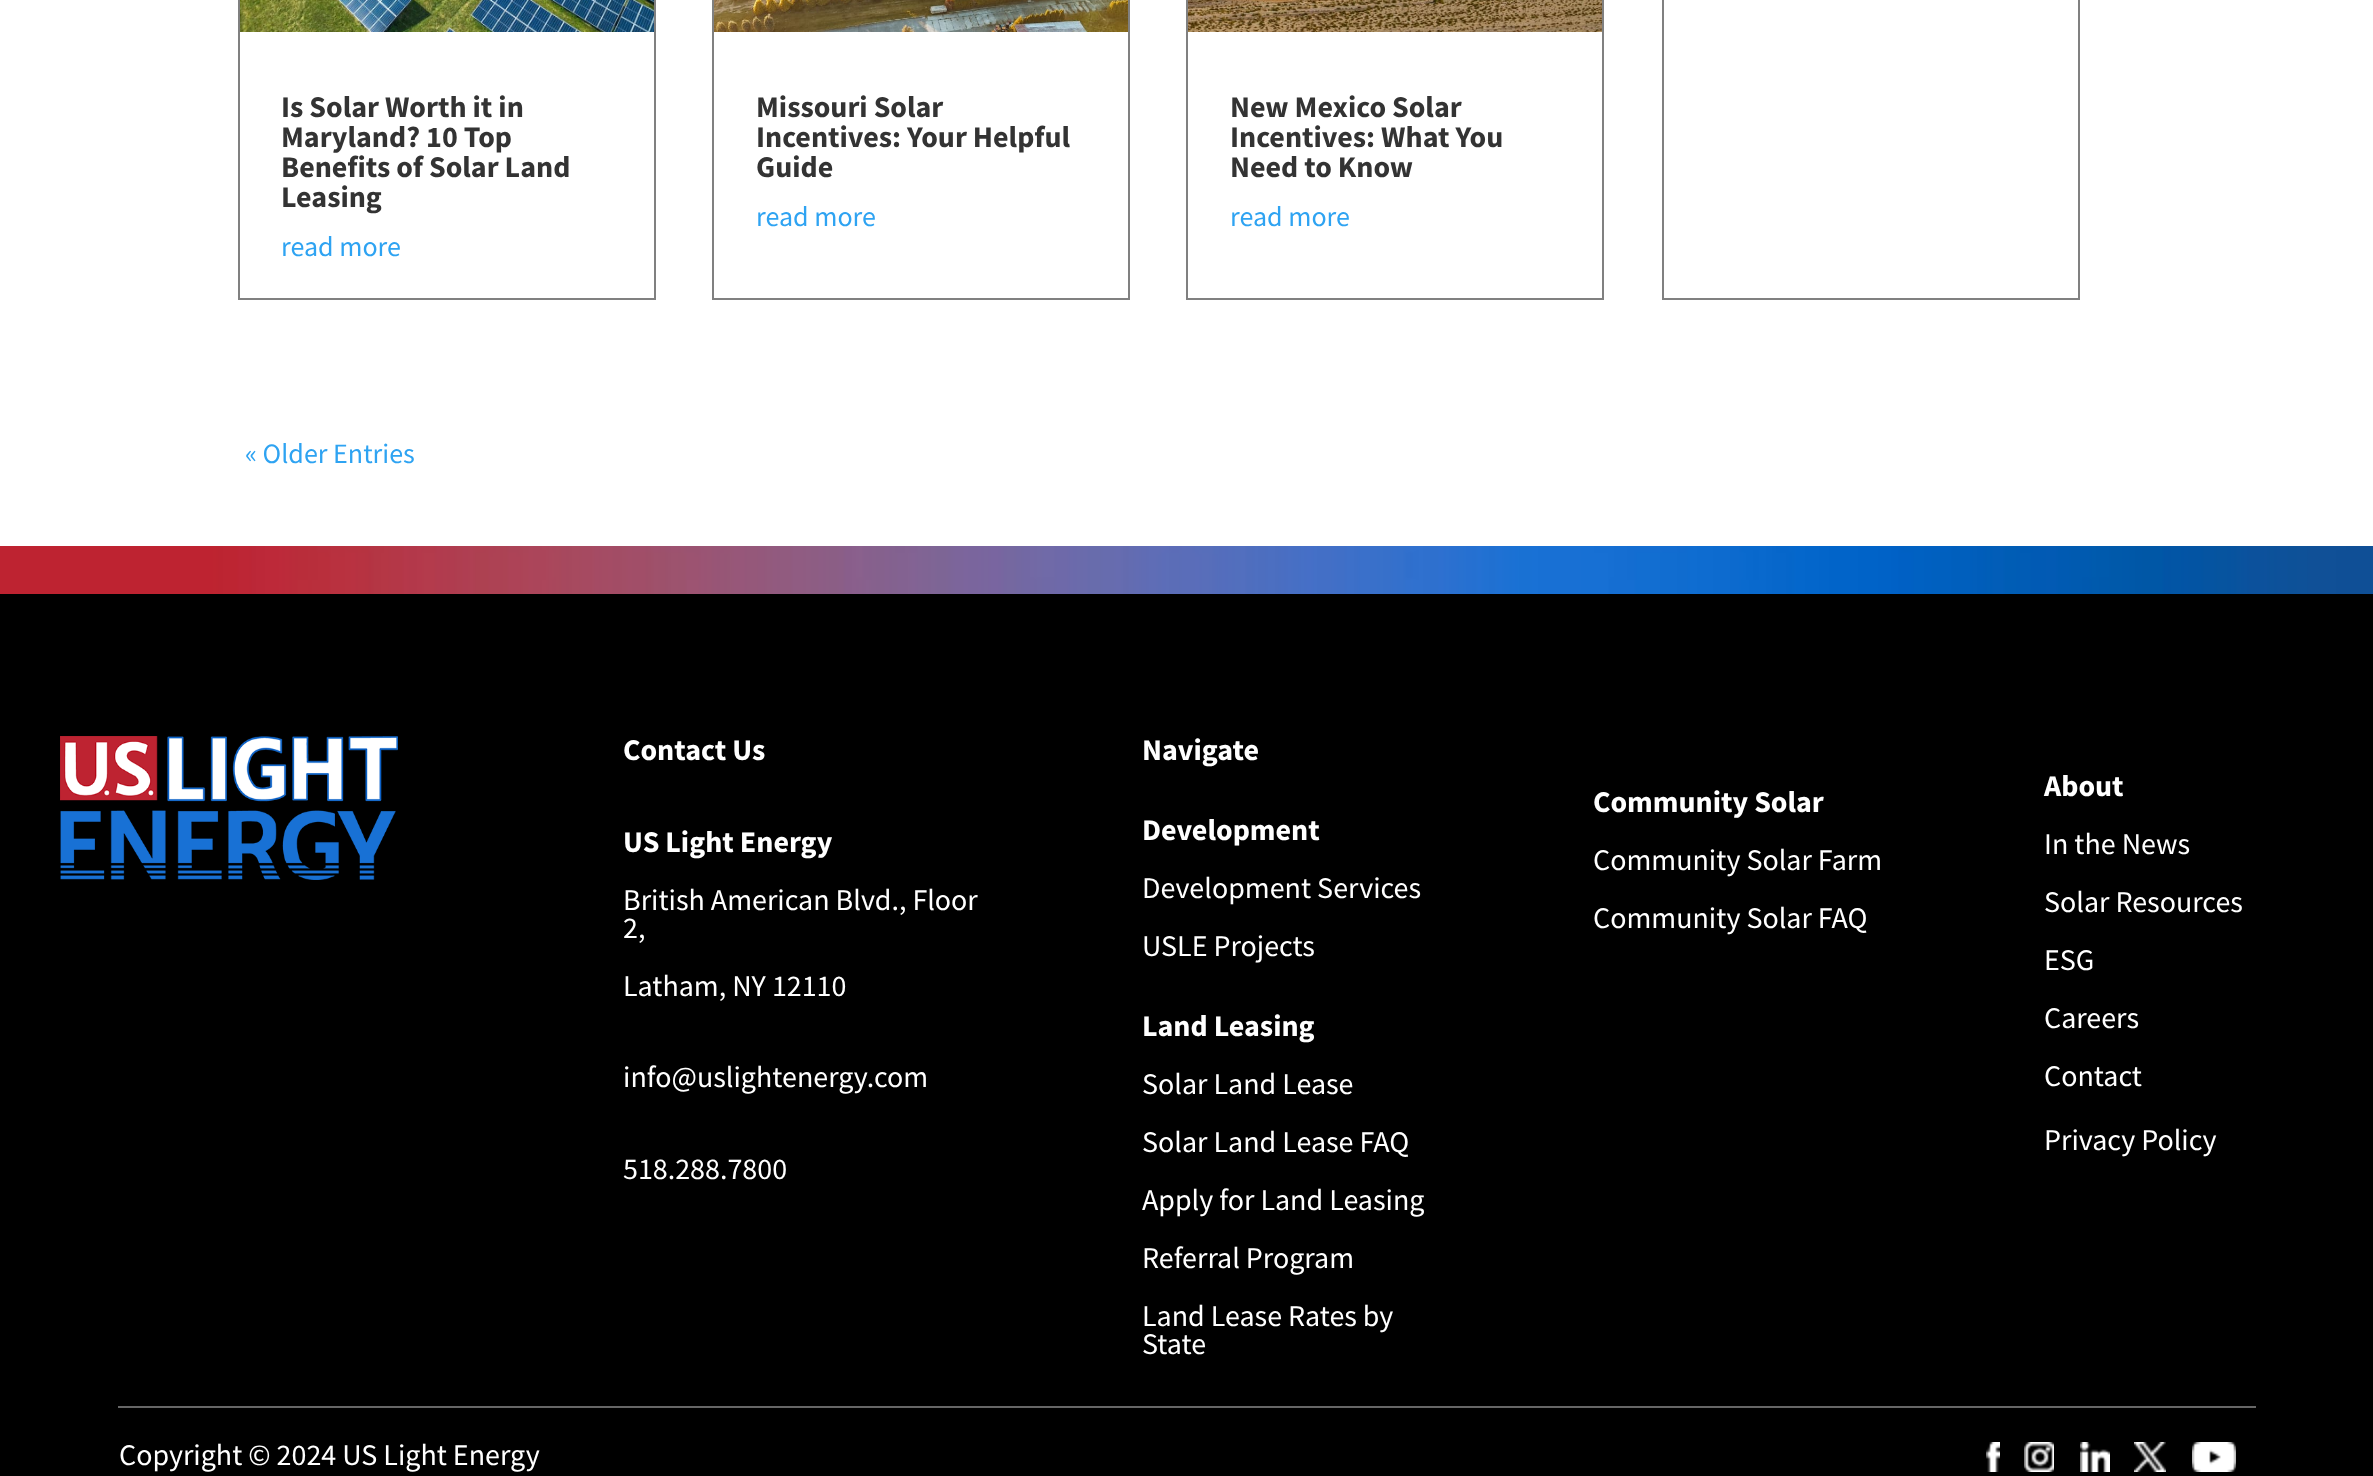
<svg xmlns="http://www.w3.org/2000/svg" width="2373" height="1476">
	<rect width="100%" height="100%" fill="#FFFFFF" />
	<rect x="239" y="-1" width="416" height="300" fill="none" stroke="#808080" stroke-width="2" />
	<image x="240" y="0" width="414" height="32" href="assets/img1.png" />
	<g font-family="Source Sans Pro" font-size="30" font-weight="700" fill="#333333">
		<text x="281" y="117">Is Solar Worth it in</text>
		<text x="281" y="147">Maryland? 10 Top</text>
		<text x="281" y="177">Benefits of Solar Land</text>
		<text x="281" y="207">Leasing</text>
	</g>
	<text x="281" y="256" font-family="Source Sans Pro" font-size="28" fill="#2EA3F2">read more</text>
	<rect x="713" y="-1" width="416" height="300" fill="none" stroke="#808080" stroke-width="2" />
	<image x="714" y="0" width="414" height="32" href="assets/img2.png" />
	<g font-family="Source Sans Pro" font-size="30" font-weight="700" fill="#333333">
		<text x="756" y="117">Missouri Solar</text>
		<text x="756" y="147">Incentives: Your Helpful</text>
		<text x="756" y="177">Guide</text>
	</g>
	<text x="756" y="226" font-family="Source Sans Pro" font-size="28" fill="#2EA3F2">read more</text>
	<rect x="1187" y="-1" width="416" height="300" fill="none" stroke="#808080" stroke-width="2" />
	<image x="1188" y="0" width="414" height="32" href="assets/img3.png" />
	<g font-family="Source Sans Pro" font-size="30" font-weight="700" fill="#333333">
		<text x="1230" y="117">New Mexico Solar</text>
		<text x="1230" y="147">Incentives: What You</text>
		<text x="1230" y="177">Need to Know</text>
	</g>
	<text x="1230" y="226" font-family="Source Sans Pro" font-size="28" fill="#2EA3F2">read more</text>
	<rect x="1663" y="-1" width="416" height="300" fill="none" stroke="#808080" stroke-width="2" />
	<text x="245" y="463" font-family="Source Sans Pro" font-size="28" fill="#2EA3F2">« Older Entries</text>
	<image x="0" y="546" width="2373" height="48" href="assets/img4.png" />
	<rect x="0" y="594" width="2373" height="882" fill="#000000" />
	<image x="60" y="736" width="338" height="144" href="assets/img5.png" />
	<g font-family="Source Sans Pro" font-size="30" font-weight="700" fill="#FFFFFF">
		<text x="623" y="760">Contact Us</text>
		<text x="623" y="852">US Light Energy</text>
	</g>
	<g font-family="Source Sans Pro" font-size="30" fill="#FFFFFF">
		<text x="623" y="910">British American Blvd., Floor</text>
		<text x="623" y="938">2,</text>
		<text x="623" y="996">Latham, NY 12110</text>
		<text x="623" y="1087">info@uslightenergy.com</text>
		<text x="623" y="1179">518.288.7800</text>
	</g>
	<g font-family="Source Sans Pro" font-size="30" font-weight="700" fill="#FFFFFF">
		<text x="1142" y="760">Navigate</text>
		<text x="1142" y="840">Development</text>
	</g>
	<g font-family="Source Sans Pro" font-size="30" fill="#FFFFFF">
		<text x="1142" y="898">Development Services</text>
		<text x="1142" y="956">USLE Projects</text>
	</g>
	<text x="1142" y="1036" font-family="Source Sans Pro" font-size="30" font-weight="700" fill="#FFFFFF">Land Leasing</text>
	<g font-family="Source Sans Pro" font-size="30" fill="#FFFFFF">
		<text x="1142" y="1094">Solar Land Lease</text>
		<text x="1142" y="1152">Solar Land Lease FAQ</text>
		<text x="1142" y="1210">Apply for Land Leasing</text>
		<text x="1142" y="1268">Referral Program</text>
		<text x="1142" y="1326">Land Lease Rates by</text>
		<text x="1142" y="1354">State</text>
	</g>
	<text x="1593" y="812" font-family="Source Sans Pro" font-size="30" font-weight="700" fill="#FFFFFF">Community Solar</text>
	<g font-family="Source Sans Pro" font-size="30" fill="#FFFFFF">
		<text x="1593" y="870">Community Solar Farm</text>
		<text x="1593" y="928">Community Solar FAQ</text>
	</g>
	<text x="2044" y="796" font-family="Source Sans Pro" font-size="30" font-weight="700" fill="#FFFFFF">About</text>
	<g font-family="Source Sans Pro" font-size="30" fill="#FFFFFF">
		<text x="2044" y="854">In the News</text>
		<text x="2044" y="912">Solar Resources</text>
		<text x="2044" y="970">ESG</text>
		<text x="2044" y="1028">Careers</text>
		<text x="2044" y="1086">Contact</text>
		<text x="2044" y="1150">Privacy Policy</text>
	</g>
	<rect x="118" y="1406" width="2138" height="2" fill="#666666" />
	<text x="119" y="1465" font-family="Source Sans Pro" font-size="30" fill="#FFFFFF">Copyright © 2024 US Light Energy</text>
	<image x="1986" y="1442" width="14" height="30" href="assets/img6.png" />
	<image x="2024" y="1442" width="30" height="30" href="assets/img7.png" />
	<image x="2080" y="1442" width="30" height="30" href="assets/img8.png" />
	<image x="2134" y="1442" width="32" height="30" href="assets/img9.png" />
	<image x="2192" y="1442" width="44" height="30" href="assets/img10.png" />
</svg>
